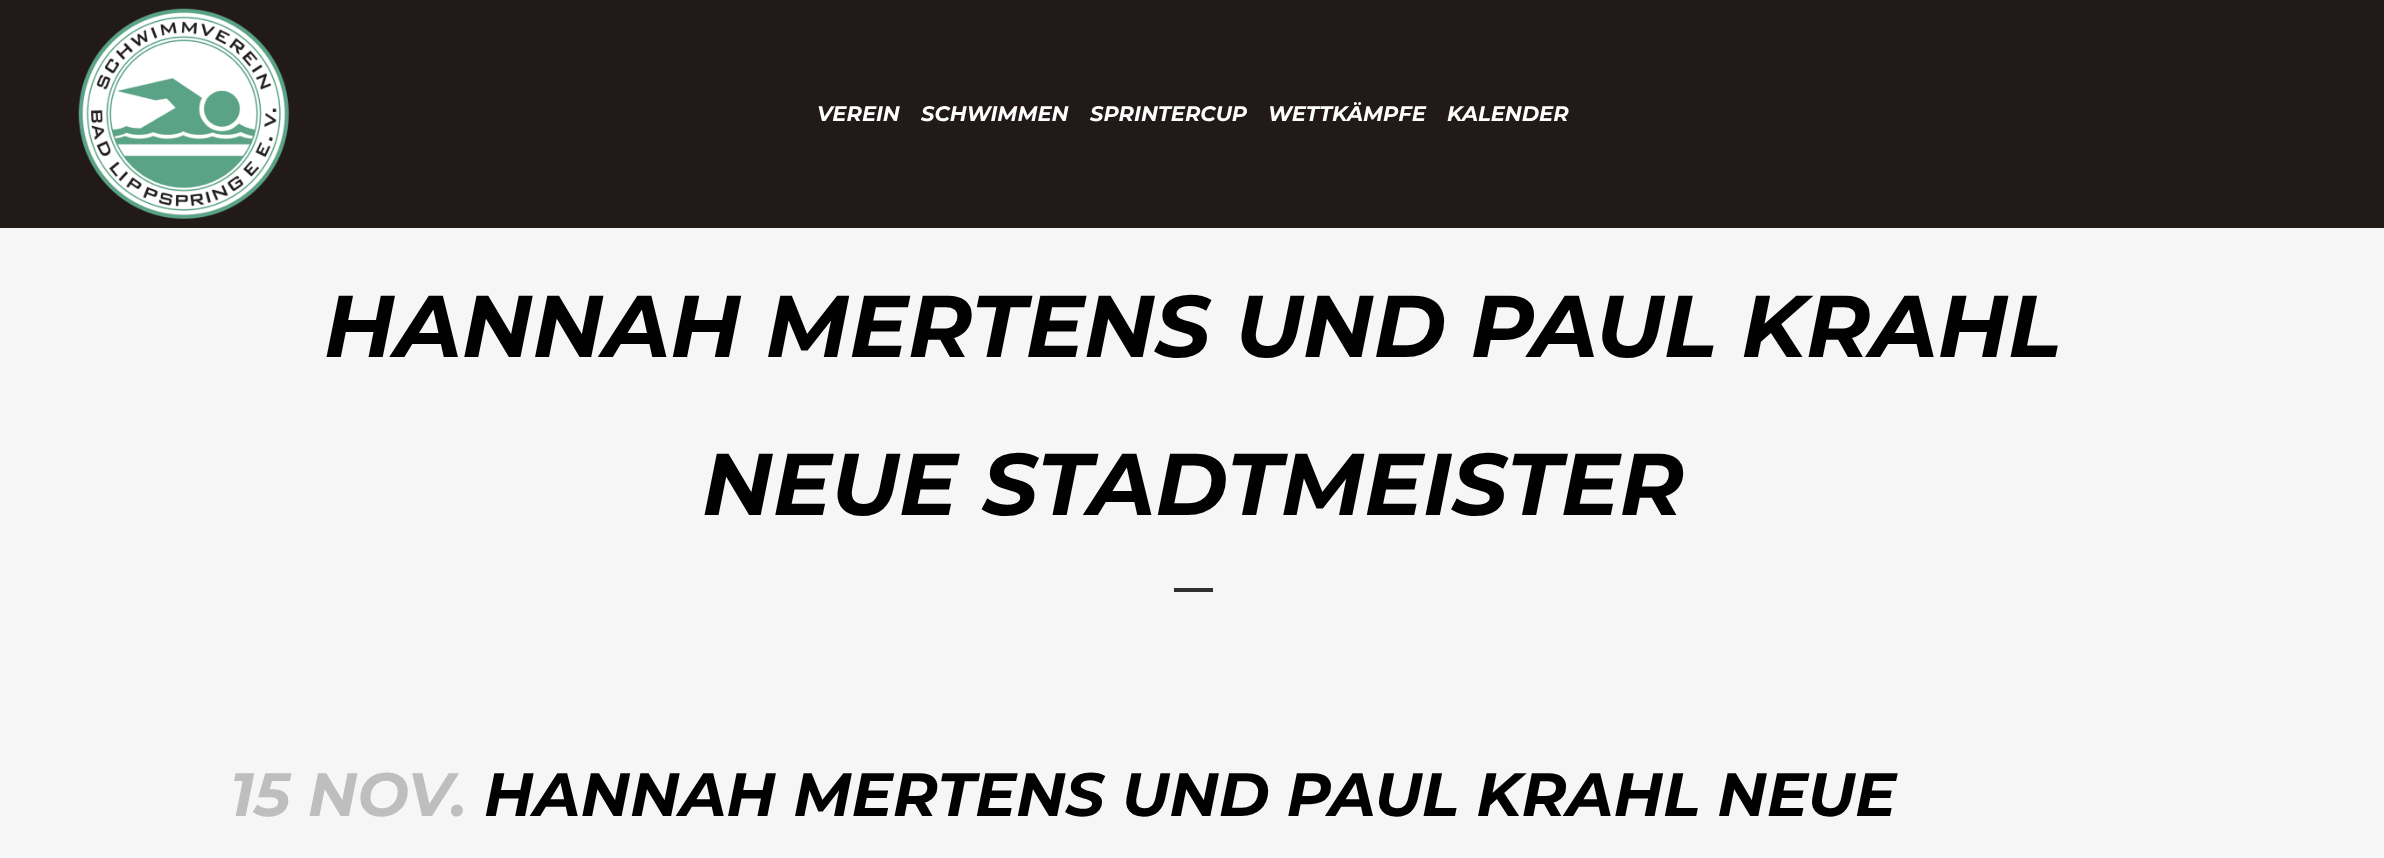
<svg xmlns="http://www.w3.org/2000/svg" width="2384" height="858">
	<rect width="100%" height="100%" fill="#F6F6F6" />
	<rect x="0" y="0" width="2384" height="228" fill="#221919" />
	<image x="78" y="8" width="211" height="211" href="assets/img1.png" />
	<g font-family="Montserrat" font-size="21" font-weight="700" font-style="italic" fill="#FFFFFF">
		<text x="817" y="121">VEREIN</text>
		<text x="921" y="121">SCHWIMMEN</text>
		<text x="1090" y="121">SPRINTERCUP</text>
		<text x="1268" y="121">WETTKÄMPFE</text>
		<text x="1447" y="121">KALENDER</text>
	</g>
	<g font-family="Montserrat" font-size="87.5" font-weight="700" font-style="italic" fill="#010101">
		<text x="324" y="357">HANNAH MERTENS UND PAUL KRAHL</text>
		<text x="702" y="515">NEUE STADTMEISTER</text>
	</g>
	<rect x="1174" y="588" width="39" height="4" fill="#303030" />
	<text x="230" y="816" font-family="Montserrat" font-size="61.25" font-weight="700" font-style="italic" fill="#BEBEBE">15 NOV.</text>
	<text x="484" y="816" font-family="Montserrat" font-size="61.25" font-weight="700" font-style="italic" fill="#010101">HANNAH MERTENS UND PAUL KRAHL NEUE</text>
</svg>
